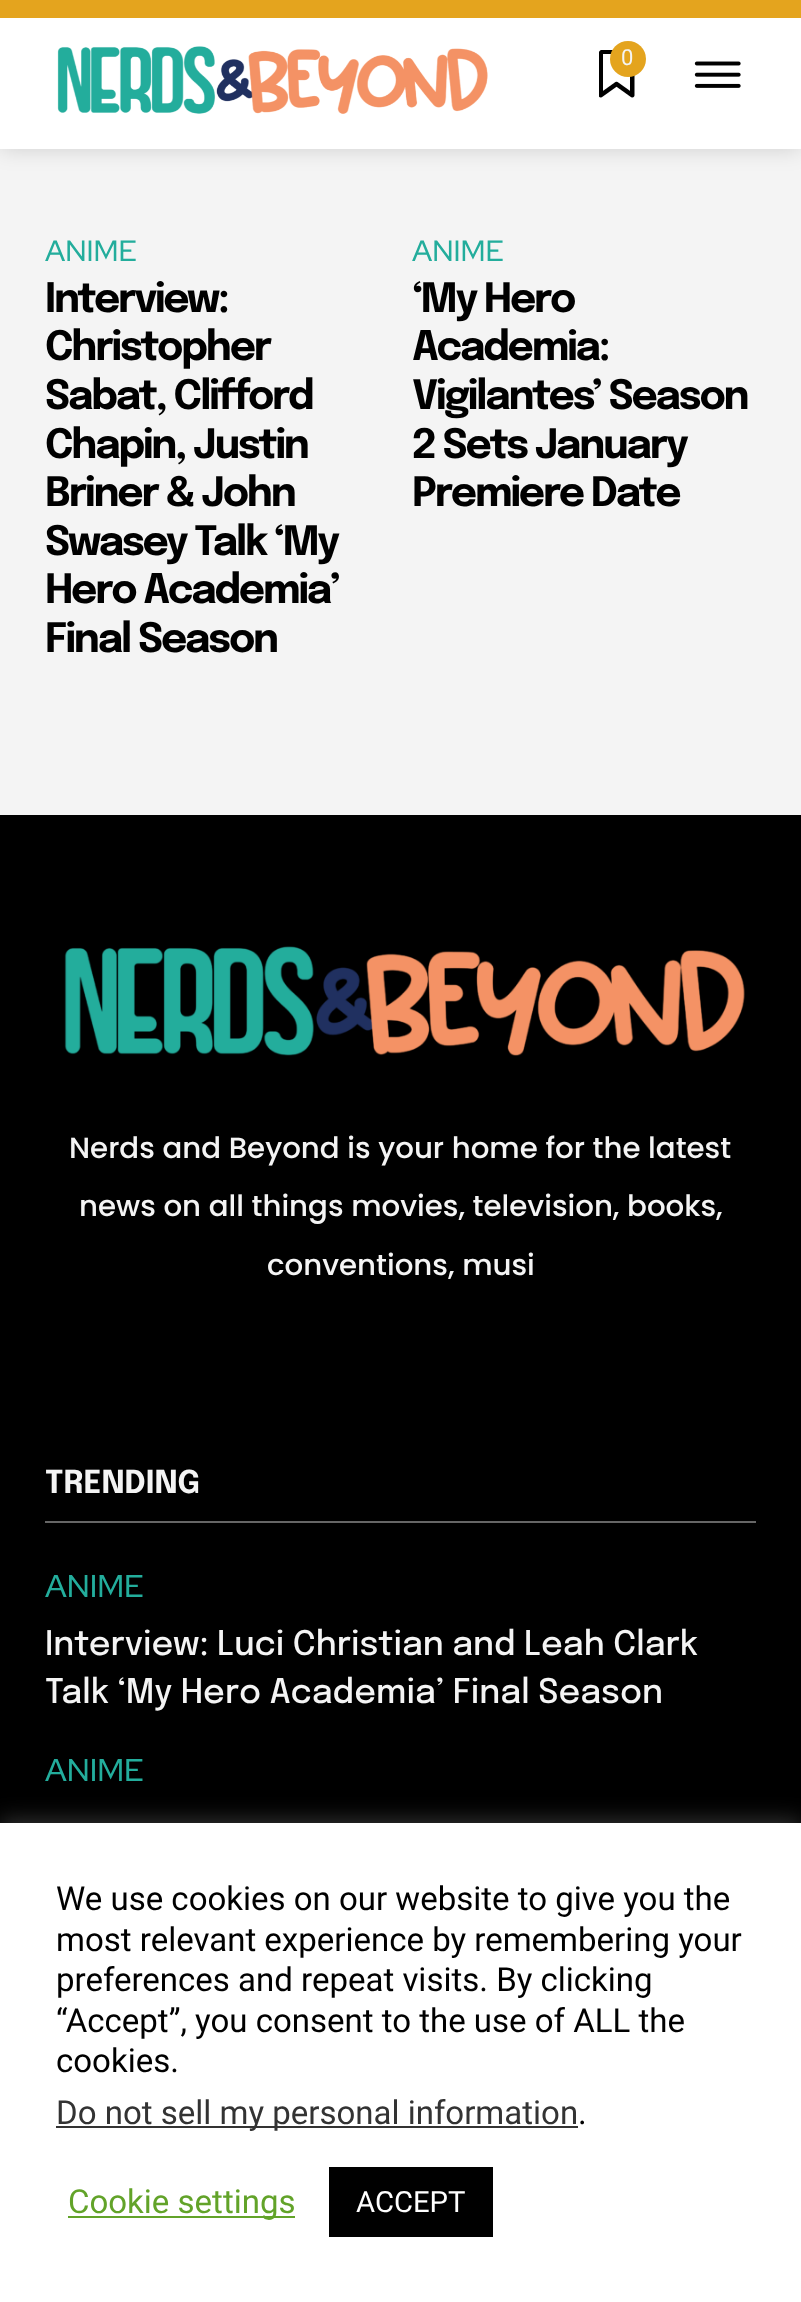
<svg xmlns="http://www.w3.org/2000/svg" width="801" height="2302">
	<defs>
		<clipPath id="clip1"><path d="M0 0H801V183H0ZM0 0H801V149H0Z" clip-rule="evenodd" /></clipPath>
	</defs>
	<rect width="100%" height="100%" fill="#F4F4F4" />
	<rect x="0" y="18" width="801" height="131" fill="#FFFFFF" />
	<image x="57" y="46" width="431" height="68" href="assets/img1.png" />
	<image x="694" y="61" width="47" height="27" href="assets/img3.png" />
	<g clip-path="url(#clip1)">
		<rect x="0" y="0" width="801" height="149" fill="#000000" fill-opacity="0.15" filter="blur(11px)" />
	</g>
	<rect x="0" y="0" width="801" height="18" fill="#E4A41E" />
	<image x="599" y="50" width="36" height="48" href="assets/img2.png" />
	<circle cx="628" cy="59" r="18" fill="#E4A41E" />
	<text x="621" y="65" font-family="Roboto" font-size="22" fill="#F4F4F4">0</text>
	<text x="45" y="261" font-family="Red Hat Display" font-size="29.25" font-weight="500" fill="#23AD9C">ANIME</text>
	<g font-family="Epilogue" font-size="40.5" font-weight="700" letter-spacing="-2.25" fill="#000000">
		<text x="45" y="312">Interview:</text>
		<text x="45" y="360">Christopher</text>
		<text x="45" y="409">Sabat, Clifford</text>
		<text x="45" y="458">Chapin, Justin</text>
		<text x="45" y="506">Briner &amp; John</text>
		<text x="45" y="555">Swasey Talk ‘My</text>
		<text x="45" y="603">Hero Academia’</text>
		<text x="45" y="652">Final Season</text>
	</g>
	<text x="412" y="261" font-family="Red Hat Display" font-size="29.25" font-weight="500" fill="#23AD9C">ANIME</text>
	<g font-family="Epilogue" font-size="40.5" font-weight="700" letter-spacing="-2.25" fill="#000000">
		<text x="412" y="312">‘My Hero</text>
		<text x="412" y="360">Academia:</text>
		<text x="412" y="409">Vigilantes’ Season</text>
		<text x="412" y="458">2 Sets January</text>
		<text x="412" y="506">Premiere Date</text>
	</g>
	<rect x="0" y="815" width="801" height="1008" fill="#000000" />
	<image x="64" y="946" width="681" height="110" href="assets/img4.png" />
	<g font-family="Poppins" font-size="29.25" font-weight="500" fill="#F4F4F4">
		<text x="69" y="1158">Nerds and Beyond is your home for the latest</text>
		<text x="79" y="1216">news on all things movies, television, books,</text>
		<text x="267" y="1275">conventions, musi</text>
	</g>
	<rect x="45" y="1521" width="711" height="2" fill="#666666" />
	<text x="45" y="1493" font-family="Epilogue" font-size="31.5" font-weight="700" fill="#F4F4F4">TRENDING</text>
	<text x="45" y="1597" font-family="Red Hat Display" font-size="31.5" font-weight="500" fill="#23AD9C">ANIME</text>
	<g font-family="Epilogue" font-size="33.75" font-weight="500" fill="#F4F4F4">
		<text x="45" y="1655">Interview: Luci Christian and Leah Clark</text>
		<text x="45" y="1703">Talk ‘My Hero Academia’ Final Season</text>
	</g>
	<text x="45" y="1781" font-family="Red Hat Display" font-size="31.5" font-weight="500" fill="#23AD9C">ANIME</text>
	<rect x="0" y="1820" width="801" height="482" fill="#ACABAB" fill-opacity="0.3" filter="blur(11px)" />
	<rect x="0" y="1823" width="801" height="479" fill="#FFFFFF" />
	<g font-family="Roboto" font-size="33" fill="#000000">
		<text x="56" y="1910">We use cookies on our website to give you the</text>
		<text x="56" y="1951">most relevant experience by remembering your</text>
		<text x="56" y="1991">preferences and repeat visits. By clicking</text>
		<text x="56" y="2032">“Accept”, you consent to the use of ALL the</text>
		<text x="56" y="2072">cookies.</text>
	</g>
	<rect x="56" y="2126" width="522" height="2" fill="#333333" />
	<text x="56" y="2124" font-family="Roboto" font-size="33" fill="#333333">Do not sell my personal information</text>
	<text x="578" y="2124" font-family="Roboto" font-size="33" fill="#000000">.</text>
	<rect x="68" y="2216" width="227" height="2" fill="#62A329" />
	<text x="68" y="2213" font-family="Roboto" font-size="33" fill="#62A329">Cookie settings</text>
	<rect x="329" y="2167" width="164" height="70" fill="#000000" />
	<text x="356" y="2212" font-family="Roboto" font-size="29.25" fill="#FFFFFF">ACCEPT</text>
</svg>
